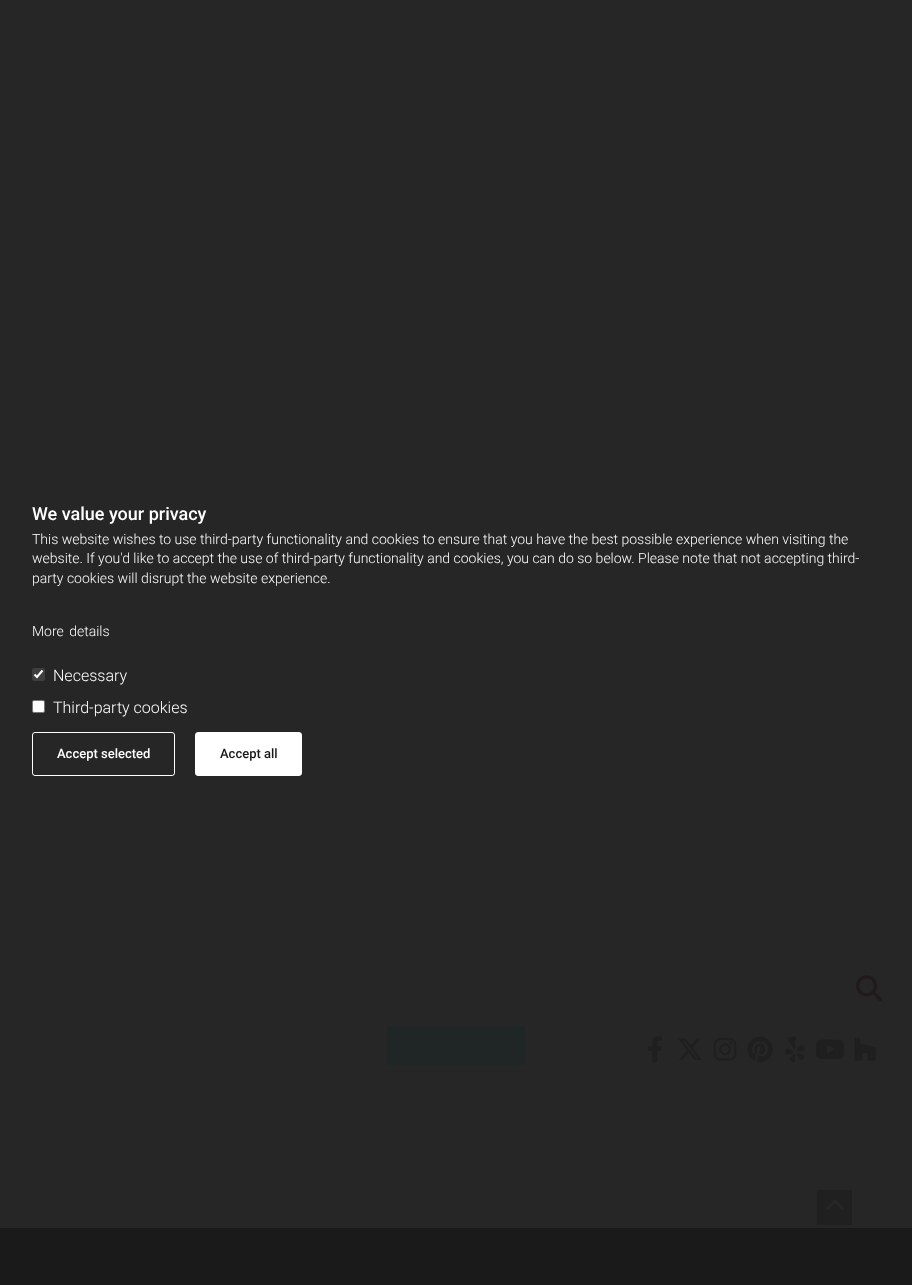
<svg xmlns="http://www.w3.org/2000/svg" width="912" height="1285">
	<rect width="100%" height="100%" fill="#262626" />
	<text x="32" y="520" font-family="Roboto" font-size="18" font-weight="500" fill="#FFFFFF">We value your privacy</text>
	<g font-family="Roboto" font-size="14" font-weight="300" fill="#FFFFFF">
		<text x="32" y="544">This website wishes to use third-party functionality and cookies to ensure that you have the best possible experience when visiting the</text>
		<text x="32" y="563">website. If you'd like to accept the use of third-party functionality and cookies, you can do so below. Please note that not accepting third-</text>
		<text x="32" y="583">party cookies will disrupt the website experience.</text>
		<text x="32" y="636" word-spacing="2">More details</text>
	</g>
	<rect x="32" y="668" width="13" height="13" rx="2" fill="#3E3E3E" />
	<path d="M34.5 674.5L37 677L42.5 670.5" fill="none" stroke="#FFFFFF" stroke-width="2.1" />
	<text x="53" y="681" font-family="Roboto" font-size="16" font-weight="300" fill="#FFFFFF">Necessary</text>
	<rect x="32.5" y="700.5" width="12" height="12" rx="1.5" fill="#FFFFFF" stroke="#767676" />
	<text x="53" y="713" font-family="Roboto" font-size="16" font-weight="300" fill="#FFFFFF">Third-party cookies</text>
	<rect x="32.5" y="732.5" width="142" height="43" rx="2.5" fill="none" stroke="#FFFFFF" />
	<text x="57" y="758" font-family="Roboto" font-size="13" font-weight="500" fill="#FFFFFF">Accept selected</text>
	<rect x="195.5" y="732.5" width="106" height="43" rx="2.5" fill="#FFFFFF" stroke="#FFFFFF" />
	<text x="220" y="758" font-family="Roboto" font-size="13" font-weight="500" fill="#181818">Accept all</text>
	<rect x="387" y="1026" width="138" height="39" fill="#202525" />
	<image x="856" y="975" width="26" height="27" href="assets/img1.png" />
	<image x="648" y="1036" width="14" height="27" href="assets/img2.png" />
	<image x="678" y="1038" width="24" height="22" href="assets/img3.png" />
	<image x="713" y="1037" width="24" height="24" href="assets/img4.png" />
	<image x="747" y="1036" width="26" height="26" href="assets/img5.png" />
	<image x="785" y="1036" width="20" height="27" href="assets/img6.png" />
	<image x="816" y="1039" width="28" height="20" href="assets/img7.png" />
	<image x="854" y="1037" width="22" height="24" href="assets/img8.png" />
	<rect x="0" y="1228" width="912" height="57" fill="#1A1A1A" />
	<rect x="817" y="1190" width="35" height="35" fill="#202020" />
	<image x="826" y="1199" width="18" height="12" href="assets/img9.png" />
</svg>
